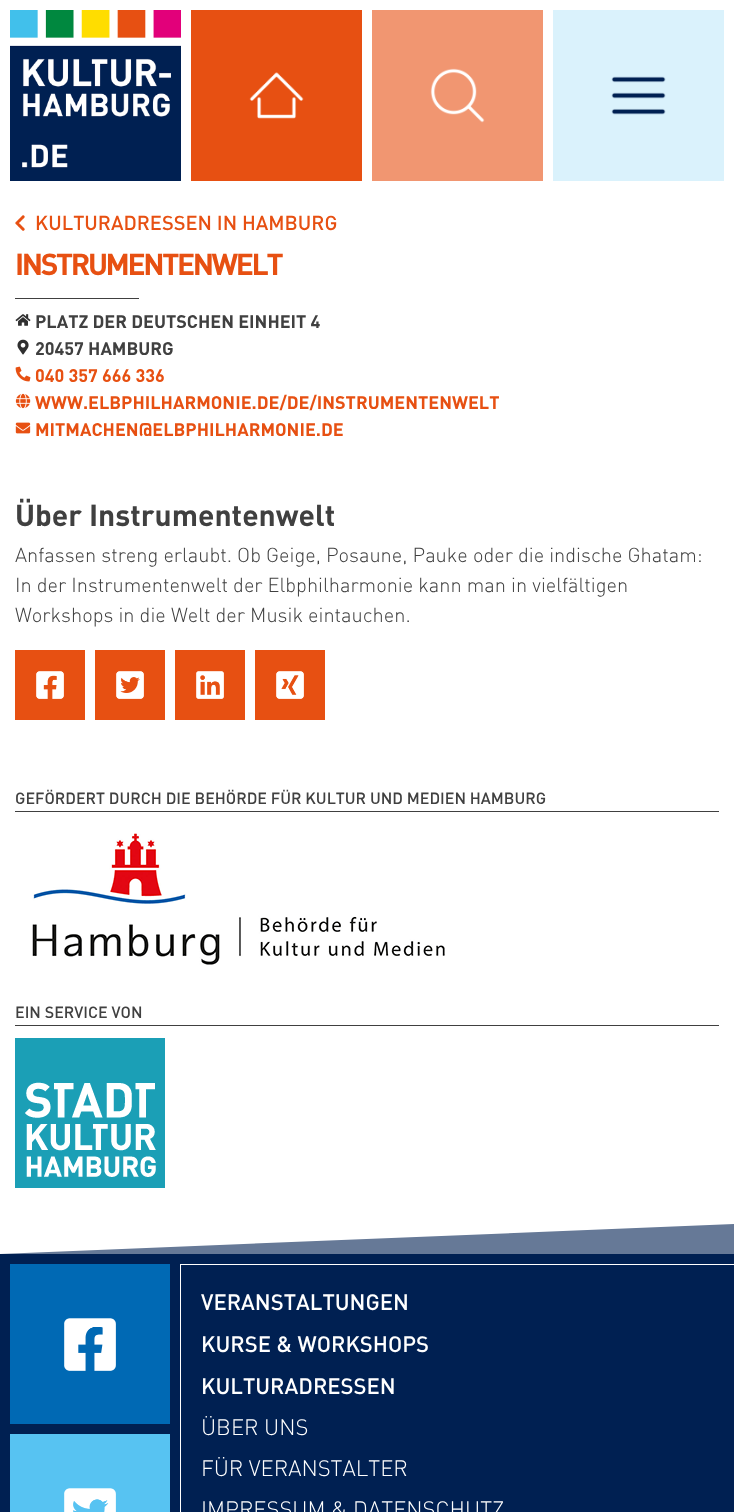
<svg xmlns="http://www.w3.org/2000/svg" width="734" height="1512">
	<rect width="100%" height="100%" fill="#FFFFFF" />
	<image x="10" y="10" width="171" height="171" href="assets/img1.png" />
	<rect x="191" y="10" width="171" height="171" fill="#E75012" />
	<image x="249" y="72" width="55" height="47" href="assets/img2.png" />
	<rect x="372" y="10" width="171" height="171" fill="#F19671" />
	<image x="430" y="68" width="55" height="55" href="assets/img3.png" />
	<rect x="553" y="10" width="171" height="171" fill="#DAF2FC" />
	<image x="611" y="76" width="55" height="39" href="assets/img4.png" />
	<image x="15" y="215" width="10" height="16" href="assets/img5.png" />
	<text x="35" y="230" font-family="DIN" font-size="20" font-weight="500" fill="#E75012">KULTURADRESSEN IN HAMBURG</text>
	<text x="15" y="275" font-family="DIN" font-size="30" font-weight="700" letter-spacing="-2.4" fill="#E75012">INSTRUMENTENWELT</text>
	<rect x="15" y="298" width="124" height="1" fill="#404040" />
	<image x="15" y="314" width="16" height="12" href="assets/img6.png" />
	<text x="35" y="328" font-family="DIN" font-size="18" font-weight="700" fill="#404040">PLATZ DER DEUTSCHEN EINHEIT 4</text>
	<image x="17" y="339" width="12" height="16" href="assets/img7.png" />
	<text x="35" y="355" font-family="DIN" font-size="18" font-weight="700" fill="#404040">20457 HAMBURG</text>
	<image x="15" y="366" width="16" height="16" href="assets/img8.png" />
	<text x="35" y="382" font-family="DIN" font-size="18" font-weight="700" fill="#E75012">040 357 666 336</text>
	<image x="15" y="393" width="16" height="16" href="assets/img9.png" />
	<text x="35" y="409" font-family="DIN" font-size="18" font-weight="700" fill="#E75012">WWW.ELBPHILHARMONIE.DE/DE/INSTRUMENTENWELT</text>
	<image x="15" y="422" width="16" height="12" href="assets/img10.png" />
	<text x="35" y="436" font-family="DIN" font-size="18" font-weight="700" fill="#E75012">MITMACHEN@ELBPHILHARMONIE.DE</text>
	<text x="15" y="526" font-family="DIN" font-size="30" font-weight="700" fill="#404040">Über Instrumentenwelt</text>
	<g font-family="DIN" font-size="20" font-weight="300" fill="#404040">
		<text x="15" y="562">Anfassen streng erlaubt. Ob Geige, Posaune, Pauke oder die indische Ghatam:</text>
		<text x="15" y="592">In der Instrumentenwelt der Elbphilharmonie kann man in vielfältigen</text>
		<text x="15" y="622">Workshops in die Welt der Musik eintauchen.</text>
	</g>
	<rect x="15" y="650" width="70" height="70" fill="#E75012" />
	<image x="36" y="671" width="28" height="28" href="assets/img11.png" />
	<rect x="95" y="650" width="70" height="70" fill="#E75012" />
	<image x="116" y="671" width="28" height="28" href="assets/img12.png" />
	<rect x="175" y="650" width="70" height="70" fill="#E75012" />
	<image x="196" y="671" width="28" height="28" href="assets/img13.png" />
	<rect x="255" y="650" width="70" height="70" fill="#E75012" />
	<image x="276" y="671" width="28" height="28" href="assets/img14.png" />
	<rect x="15" y="811" width="704" height="1" fill="#404040" />
	<text x="15" y="804" font-family="DIN" font-size="16" font-weight="500" fill="#404040">GEFÖRDERT DURCH DIE BEHÖRDE FÜR KULTUR UND MEDIEN HAMBURG</text>
	<image x="32" y="833" width="413" height="132" href="assets/img15.png" />
	<rect x="15" y="1025" width="704" height="1" fill="#404040" />
	<text x="15" y="1018" font-family="DIN" font-size="16" font-weight="500" fill="#404040">EIN SERVICE VON</text>
	<image x="15" y="1038" width="150" height="150" href="assets/img16.png" />
	<path d="M734 1224V1254H0Z" fill="#667997" />
	<rect x="0" y="1254" width="734" height="258" fill="#002052" />
	<rect x="10" y="1264" width="160" height="160" fill="#0069B4" />
	<image x="64" y="1318" width="52" height="53" href="assets/img17.png" />
	<rect x="10" y="1434" width="160" height="78" fill="#57C3F2" />
	<image x="64" y="1488" width="52" height="24" href="assets/img18.png" />
	<rect x="180" y="1264" width="554" height="1" fill="#FFFFFF" />
	<rect x="180" y="1264" width="1" height="248" fill="#FFFFFF" />
	<g font-family="DIN" font-size="22" font-weight="500" fill="#FFFFFF">
		<text x="201" y="1310">VERANSTALTUNGEN</text>
		<text x="201" y="1352">KURSE &amp; WORKSHOPS</text>
		<text x="201" y="1394">KULTURADRESSEN</text>
	</g>
	<g font-family="DIN" font-size="22" font-weight="300" fill="#FFFFFF">
		<text x="201" y="1435">ÜBER UNS</text>
		<text x="201" y="1476">FÜR VERANSTALTER</text>
		<text x="201" y="1517">IMPRESSUM &amp; DATENSCHUTZ</text>
	</g>
</svg>
